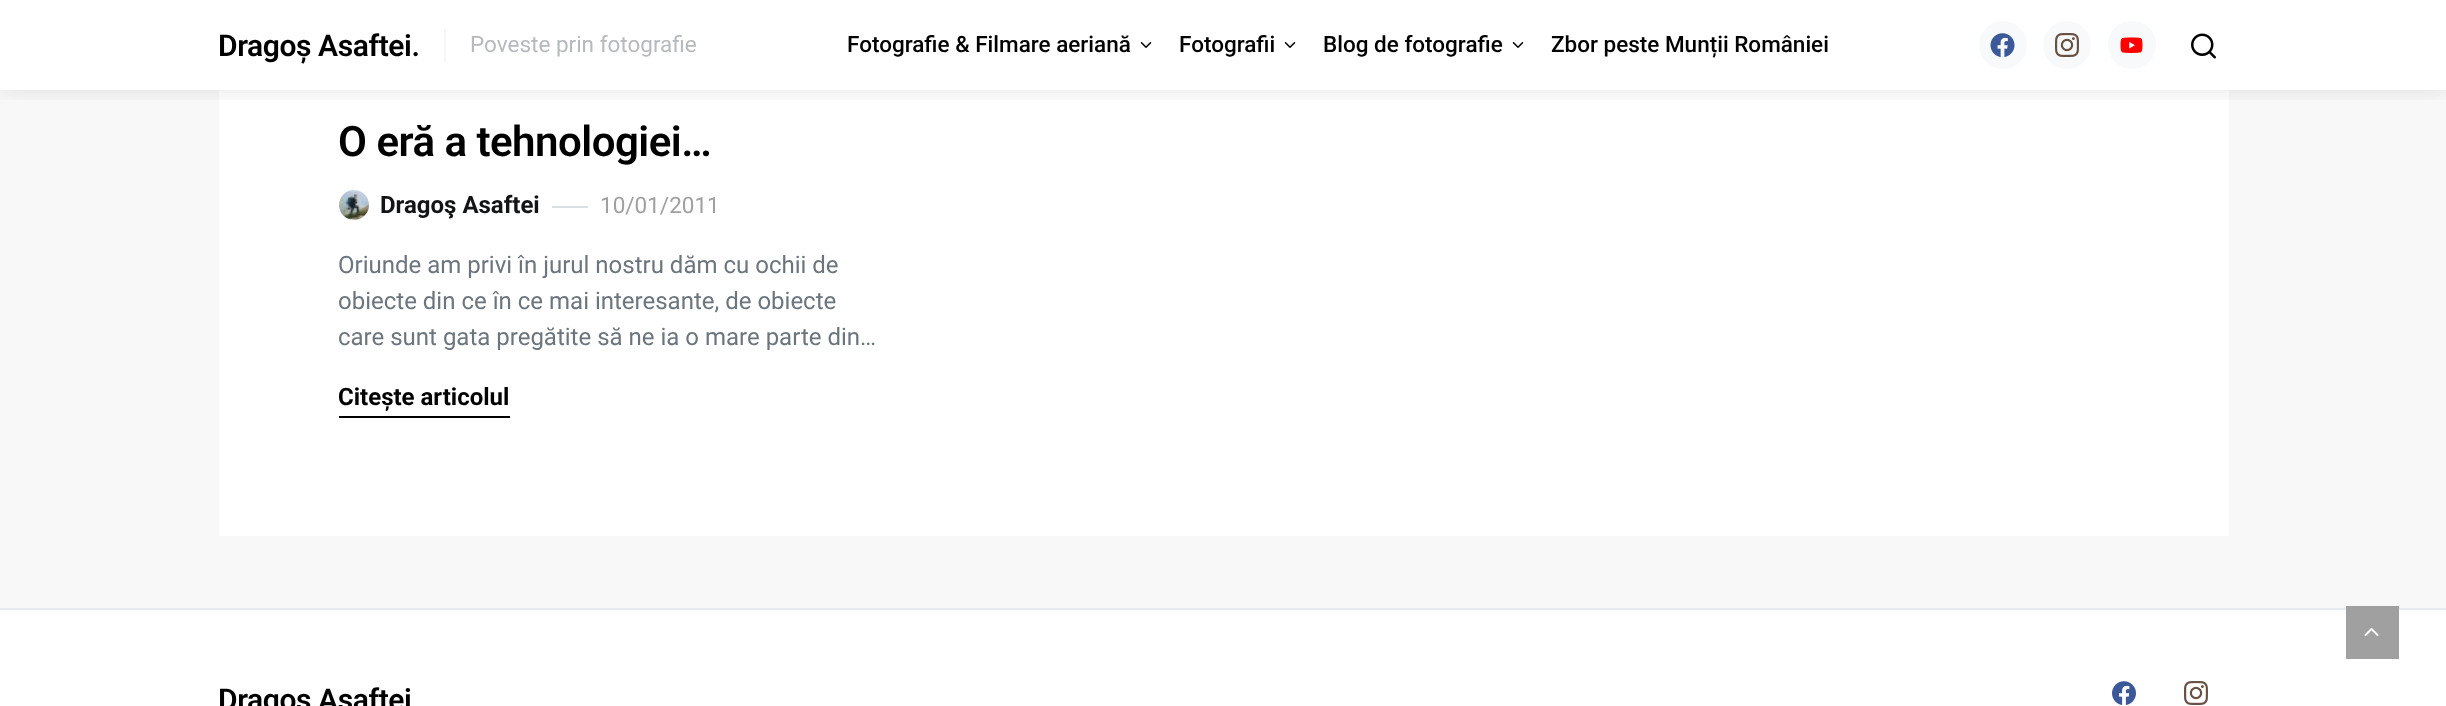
<svg xmlns="http://www.w3.org/2000/svg" width="2446" height="706">
	<defs>
		<clipPath id="clip1"><rect x="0" y="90" width="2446" height="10" /></clipPath>
	</defs>
	<rect width="100%" height="100%" fill="#F8F8F8" />
	<rect x="0" y="0" width="2446" height="90" fill="#FFFFFF" />
	<rect x="219" y="90" width="2010" height="446" fill="#FFFFFF" />
	<g clip-path="url(#clip1)">
		<rect x="0" y="0" width="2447" height="90" fill="#000000" fill-opacity="0.1" filter="blur(12px)" />
	</g>
	<text x="218" y="56" font-family="Roboto" font-size="30" font-weight="600" letter-spacing="-0.4" fill="#000000">Dragoș Asaftei.</text>
	<rect x="444" y="29" width="2" height="33" fill="#F4F6F7" />
	<text x="470" y="52" font-family="Roboto" font-size="22.5" fill="#B6BABE">Poveste prin fotografie</text>
	<text x="847" y="52" font-family="Roboto" font-size="22.5" font-weight="500" fill="#000000">Fotografie &amp; Filmare aeriană</text>
	<image x="1140" y="42" width="12" height="6" href="assets/img1.png" />
	<text x="1179" y="52" font-family="Roboto" font-size="22.5" font-weight="500" fill="#000000">Fotografii</text>
	<image x="1284" y="42" width="12" height="6" href="assets/img1.png" />
	<text x="1323" y="52" font-family="Roboto" font-size="22.5" font-weight="500" fill="#000000">Blog de fotografie</text>
	<image x="1512" y="42" width="12" height="6" href="assets/img1.png" />
	<text x="1551" y="52" font-family="Roboto" font-size="22.5" font-weight="500" fill="#000000">Zbor peste Munții României</text>
	<circle cx="2003" cy="45" r="24" fill="#F8F9FA" />
	<image x="1990" y="33" width="25" height="24" href="assets/img2.png" />
	<circle cx="2067" cy="45" r="24" fill="#F8F9FA" />
	<image x="2055" y="33" width="24" height="24" href="assets/img3.png" />
	<circle cx="2132" cy="45" r="24" fill="#F8F9FA" />
	<image x="2120" y="37" width="23" height="16" href="assets/img4.png" />
	<image x="2191" y="33" width="25" height="26" href="assets/img5.png" />
	<text x="338" y="156" font-family="Roboto" font-size="42" font-weight="600" letter-spacing="-0.5" fill="#000000">O eră a tehnologiei…</text>
	<image x="339" y="190" width="30" height="30" href="assets/img6.png" />
	<text x="380" y="213" font-family="Roboto" font-size="24" font-weight="700" fill="#121416">Dragoş Asaftei</text>
	<rect x="552" y="206" width="36" height="2" fill="#DADFE3" />
	<text x="600" y="213" font-family="Roboto" font-size="22.5" fill="#A0A0A0">10/01/2011</text>
	<g font-family="Roboto" font-size="24" fill="#6C757D">
		<text x="338" y="273">Oriunde am privi în jurul nostru dăm cu ochii de</text>
		<text x="338" y="309">obiecte din ce în ce mai interesante, de obiecte</text>
		<text x="338" y="345">care sunt gata pregătite să ne ia o mare parte din…</text>
	</g>
	<text x="338" y="405" font-family="Roboto" font-size="24" font-weight="700" fill="#000000">Citește articolul</text>
	<rect x="339" y="416" width="171" height="2" fill="#000000" />
	<rect x="0" y="610" width="2446" height="96" fill="#FFFFFF" />
	<rect x="0" y="608" width="2446" height="2" fill="#E9ECEF" />
	<text x="218" y="710" font-family="Roboto" font-size="30" font-weight="600" letter-spacing="-0.4" fill="#000000">Dragoș Asaftei</text>
	<image x="2112" y="681" width="24" height="24" href="assets/img7.png" />
	<image x="2184" y="681" width="24" height="24" href="assets/img8.png" />
	<rect x="2346" y="606" width="53" height="53" fill="#A0A0A0" />
	<image x="2364" y="628" width="15" height="8" href="assets/img9.png" />
</svg>
